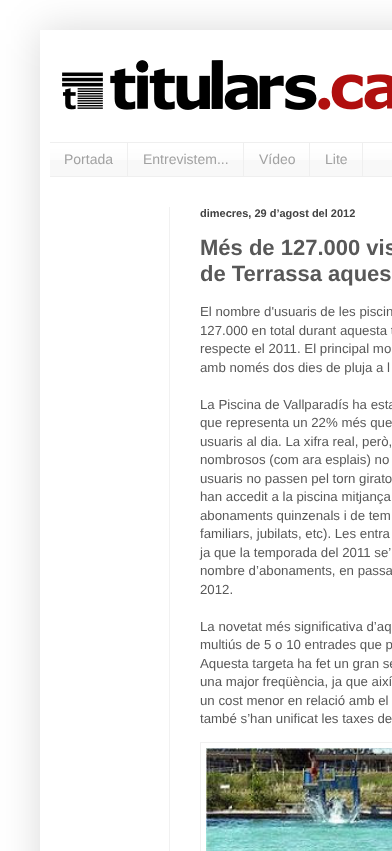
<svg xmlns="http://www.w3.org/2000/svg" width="392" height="851">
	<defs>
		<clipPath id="clip1"><path d="M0 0H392V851H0ZM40 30H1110V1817H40Z" clip-rule="evenodd" /></clipPath>
	</defs>
	<rect width="100%" height="100%" fill="#FFFFFF" />
	<g clip-path="url(#clip1)">
		<rect x="40" y="30" width="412" height="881" fill="#000000" fill-opacity="0.15" filter="blur(20px)" />
	</g>
	<image x="62" y="60" width="330" height="50" href="assets/img1.png" />
	<rect x="50" y="144" width="342" height="32" fill="#F8F8F8" />
	<image x="50" y="143" width="342" height="17" href="assets/img2.png" />
	<rect x="50" y="142" width="342" height="1" fill="#EFEFEF" />
	<rect x="50" y="176" width="342" height="1" fill="#EFEFEF" />
	<rect x="127" y="143" width="1" height="33" fill="#EFEFEF" />
	<text x="64" y="164" font-family="Liberation Sans" font-size="14" fill="#A1A1A1">Portada</text>
	<rect x="243" y="143" width="1" height="33" fill="#EFEFEF" />
	<text x="143" y="164" font-family="Liberation Sans" font-size="14" fill="#A1A1A1">Entrevistem...</text>
	<rect x="309" y="143" width="1" height="33" fill="#EFEFEF" />
	<text x="259" y="164" font-family="Liberation Sans" font-size="14" fill="#A1A1A1">Vídeo</text>
	<rect x="362" y="143" width="1" height="33" fill="#EFEFEF" />
	<text x="325" y="164" font-family="Liberation Sans" font-size="14" fill="#A1A1A1">Lite</text>
	<rect x="169" y="207" width="1" height="644" fill="#F1F1F1" />
	<text x="200" y="217" font-family="Liberation Sans" font-size="11" font-weight="700" fill="#424242">dimecres, 29 d’agost del 2012</text>
	<g font-family="Liberation Sans" font-size="22" font-weight="700" fill="#585858">
		<text x="200" y="255">Més de 127.000 vis</text>
		<text x="200" y="281">de Terrassa aques</text>
	</g>
	<g font-family="Liberation Sans" font-size="13.25" fill="#585858">
		<text x="200" y="316">El nombre d'usuaris de les piscin</text>
		<text x="200" y="335">127.000 en total durant aquesta t</text>
		<text x="200" y="353">respecte el 2011. El principal mo</text>
		<text x="200" y="372">amb només dos dies de pluja a l</text>
		<text x="200" y="409">La Piscina de Vallparadís ha esta</text>
		<text x="200" y="427">que representa un 22% més que</text>
		<text x="200" y="446">usuaris al dia. La xifra real, però,</text>
		<text x="200" y="464">nombrosos (com ara esplais) no</text>
		<text x="200" y="483">usuaris no passen pel torn girato</text>
		<text x="200" y="501">han accedit a la piscina mitjança</text>
		<text x="200" y="520">abonaments quinzenals i de tem</text>
		<text x="200" y="538">familiars, jubilats, etc). Les entra</text>
		<text x="200" y="557">ja que la temporada del 2011 se’</text>
		<text x="200" y="575">nombre d’abonaments, en passa</text>
		<text x="200" y="594">2012.</text>
		<text x="200" y="631">La novetat més significativa d’aq</text>
		<text x="200" y="649">multiús de 5 o 10 entrades que p</text>
		<text x="200" y="668">Aquesta targeta ha fet un gran se</text>
		<text x="200" y="686">una major freqüència, ja que així</text>
		<text x="200" y="705">un cost menor en relació amb el</text>
		<text x="200" y="723">també s’han unificat les taxes de</text>
	</g>
	<rect x="200.5" y="742.5" width="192" height="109" fill="none" stroke="#F1F1F1" />
	<image x="206" y="748" width="186" height="103" href="assets/img3.png" />
</svg>
